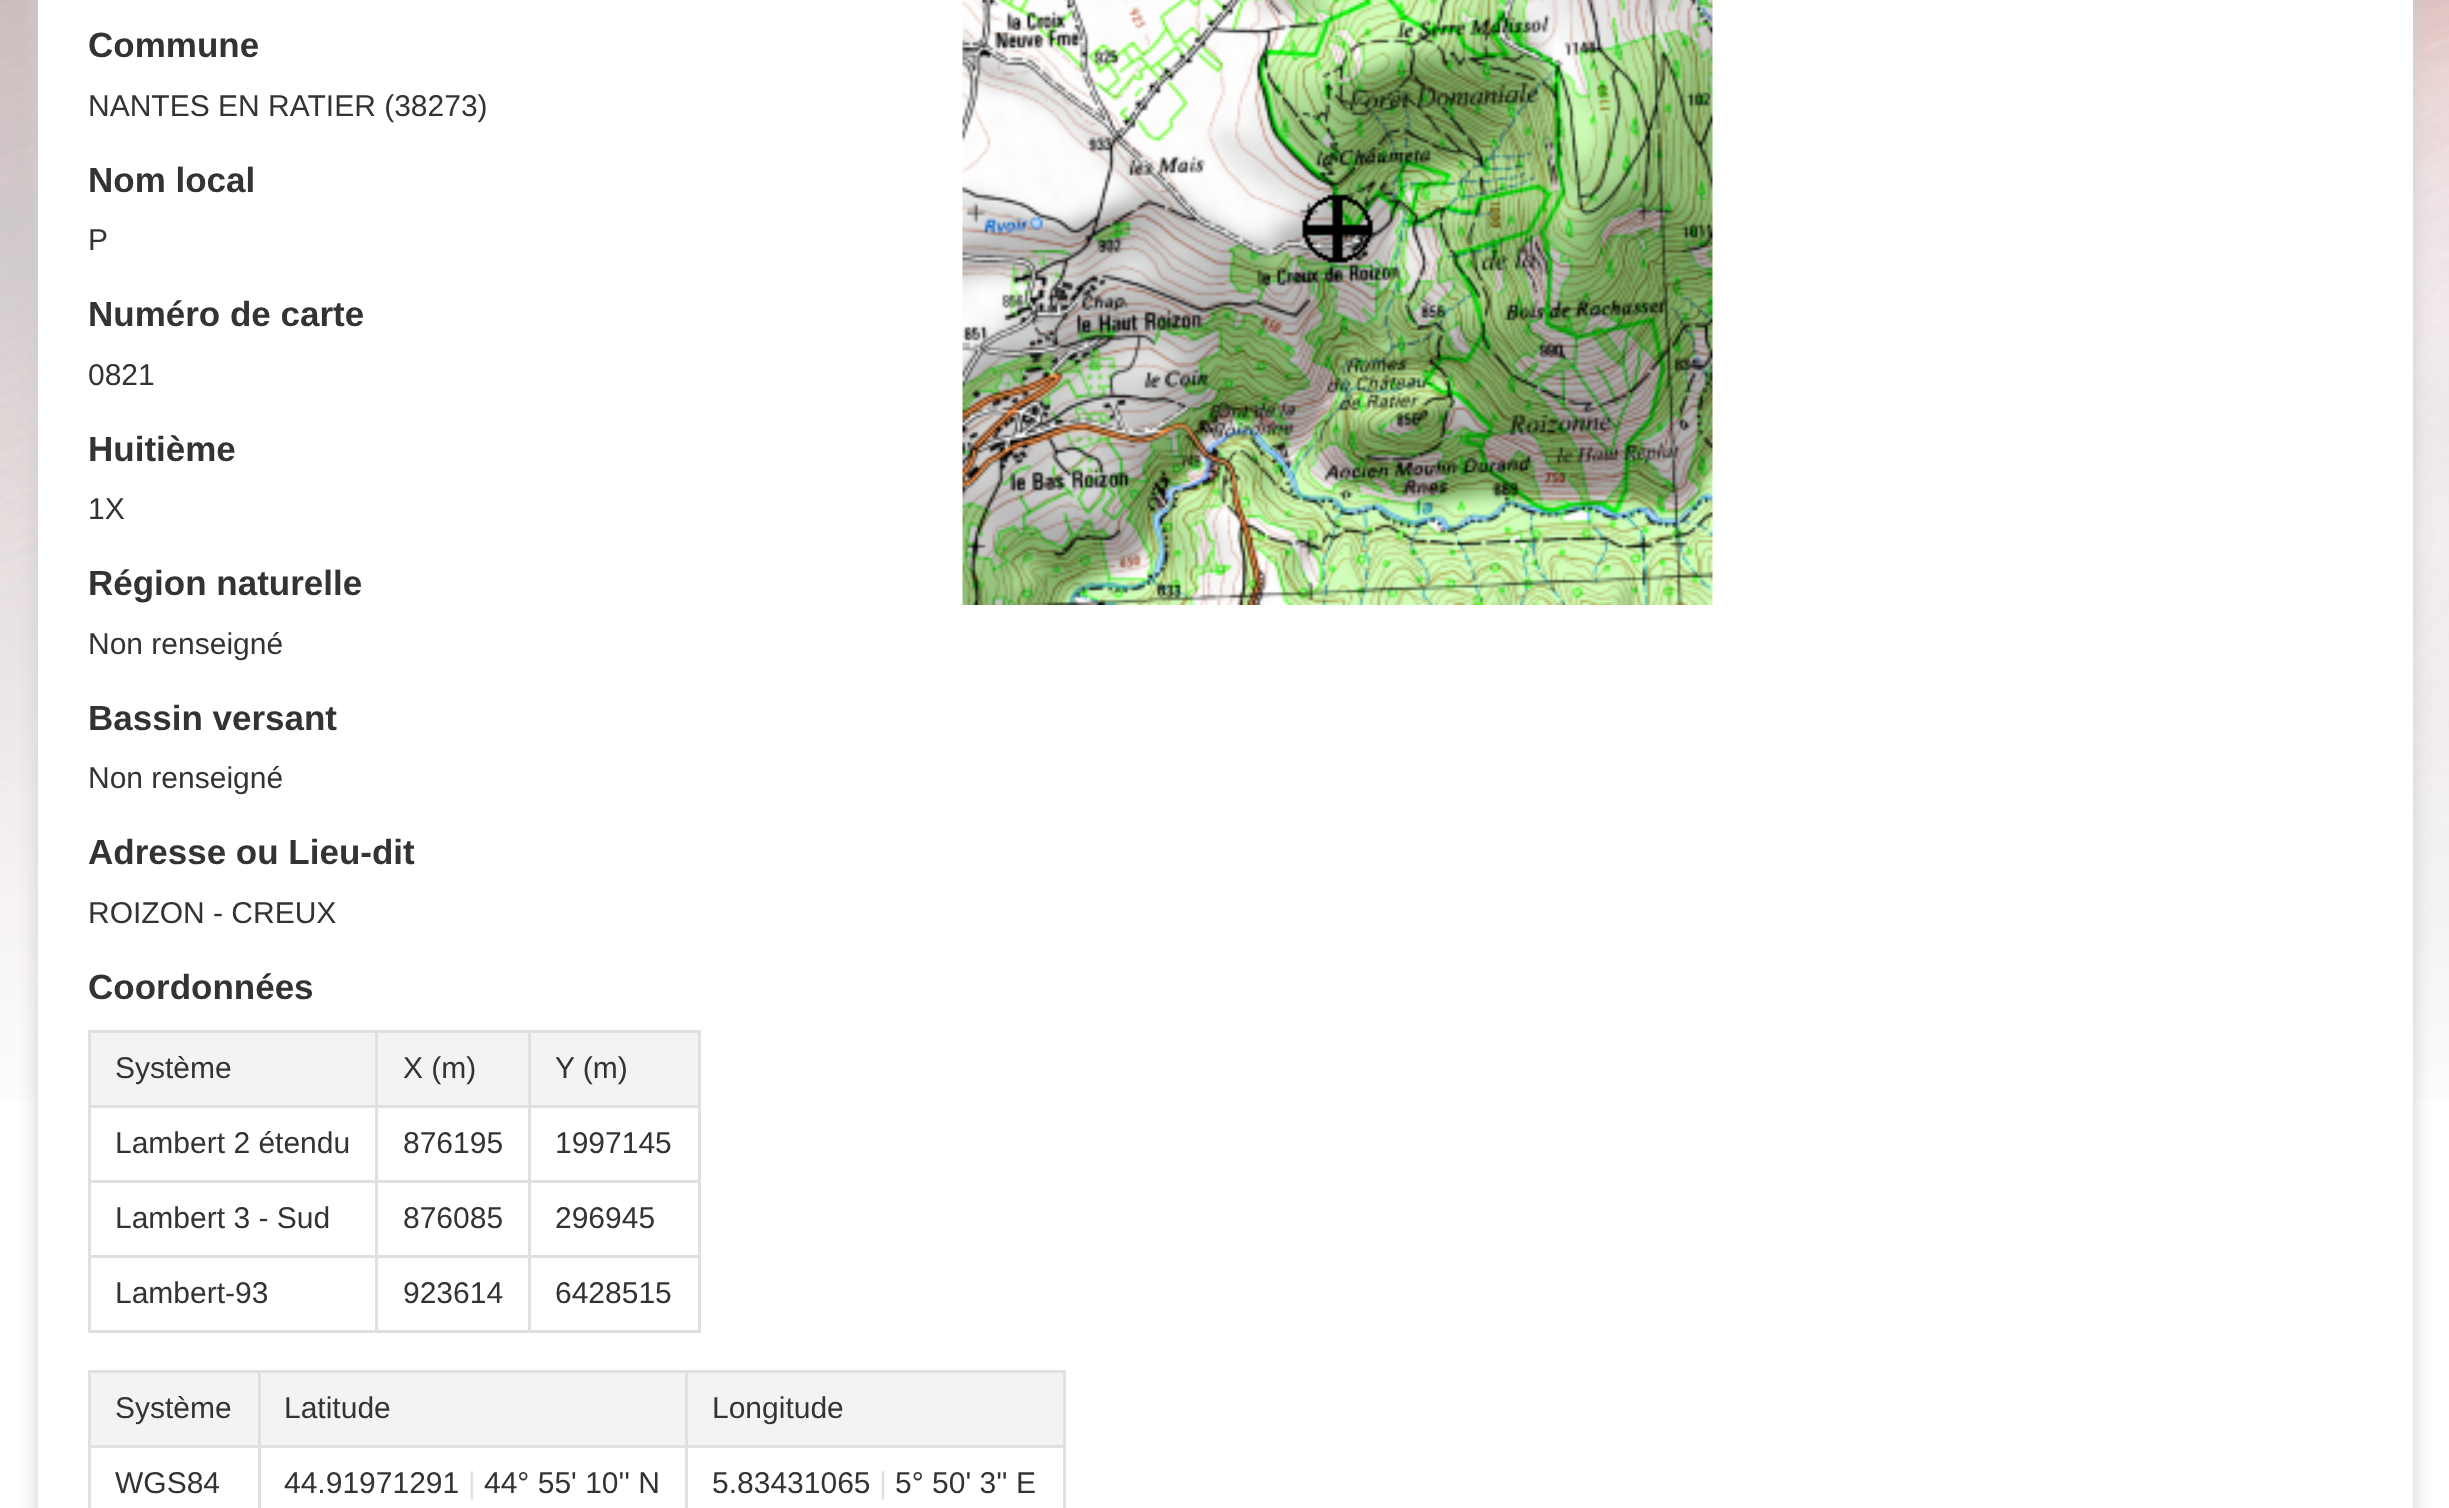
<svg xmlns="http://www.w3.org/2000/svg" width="2449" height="1508">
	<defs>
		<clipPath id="clip1"><path d="M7 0H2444V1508H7ZM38-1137H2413V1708H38Z" clip-rule="evenodd" /></clipPath>
	</defs>
	<rect width="100%" height="100%" fill="#FFFFFF" />
	<image x="0" y="0" width="2449" height="1101" href="assets/img1.png" />
	<rect x="38" y="0" width="2375" height="1101" fill="#FFFFFF" />
	<g clip-path="url(#clip1)">
		<rect x="38" y="-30" width="2375" height="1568" fill="#CFCFCF" filter="blur(10px)" />
	</g>
	<text x="88" y="57" font-family="Liberation Sans" font-size="35" font-weight="700" fill="#333333">Commune</text>
	<text x="88" y="116" font-family="Liberation Sans" font-size="30" fill="#333333">NANTES EN RATIER (38273)</text>
	<text x="88" y="192" font-family="Liberation Sans" font-size="35" font-weight="700" fill="#333333">Nom local</text>
	<text x="88" y="250" font-family="Liberation Sans" font-size="30" fill="#333333">P</text>
	<text x="88" y="326" font-family="Liberation Sans" font-size="35" font-weight="700" fill="#333333">Numéro de carte</text>
	<text x="88" y="385" font-family="Liberation Sans" font-size="30" fill="#333333">0821</text>
	<text x="88" y="461" font-family="Liberation Sans" font-size="35" font-weight="700" fill="#333333">Huitième</text>
	<text x="88" y="519" font-family="Liberation Sans" font-size="30" fill="#333333">1X</text>
	<text x="88" y="595" font-family="Liberation Sans" font-size="35" font-weight="700" fill="#333333">Région naturelle</text>
	<text x="88" y="654" font-family="Liberation Sans" font-size="30" fill="#333333">Non renseigné</text>
	<text x="88" y="730" font-family="Liberation Sans" font-size="35" font-weight="700" fill="#333333">Bassin versant</text>
	<text x="88" y="788" font-family="Liberation Sans" font-size="30" fill="#333333">Non renseigné</text>
	<text x="88" y="864" font-family="Liberation Sans" font-size="35" font-weight="700" fill="#333333">Adresse ou Lieu-dit</text>
	<text x="88" y="923" font-family="Liberation Sans" font-size="30" fill="#333333">ROIZON - CREUX</text>
	<text x="88" y="999" font-family="Liberation Sans" font-size="35" font-weight="700" fill="#333333">Coordonnées</text>
	<rect x="88" y="1030" width="612" height="3" fill="#E0E0E0" />
	<rect x="698" y="1030" width="3" height="303" fill="#E0E0E0" />
	<rect x="88" y="1330" width="612" height="3" fill="#E0E0E0" />
	<rect x="88" y="1030" width="3" height="303" fill="#E0E0E0" />
	<rect x="91" y="1033" width="284" height="72" fill="#F3F3F3" />
	<text x="115" y="1078" font-family="Liberation Sans" font-size="30" fill="#333333">Système</text>
	<rect x="378" y="1033" width="150" height="72" fill="#F3F3F3" />
	<rect x="528" y="1105" width="172" height="3" fill="#E0E0E0" />
	<rect x="528" y="1180" width="172" height="3" fill="#E0E0E0" />
	<rect x="528" y="1255" width="172" height="3" fill="#E0E0E0" />
	<rect x="528" y="1255" width="3" height="78" fill="#E0E0E0" />
	<rect x="375" y="1255" width="155" height="3" fill="#E0E0E0" />
	<rect x="528" y="1180" width="3" height="78" fill="#E0E0E0" />
	<rect x="375" y="1180" width="155" height="3" fill="#E0E0E0" />
	<rect x="528" y="1105" width="3" height="78" fill="#E0E0E0" />
	<rect x="375" y="1105" width="155" height="3" fill="#E0E0E0" />
	<rect x="375" y="1255" width="3" height="78" fill="#E0E0E0" />
	<rect x="88" y="1255" width="290" height="3" fill="#E0E0E0" />
	<rect x="375" y="1180" width="3" height="78" fill="#E0E0E0" />
	<rect x="88" y="1180" width="290" height="3" fill="#E0E0E0" />
	<rect x="375" y="1105" width="3" height="78" fill="#E0E0E0" />
	<rect x="88" y="1105" width="290" height="3" fill="#E0E0E0" />
	<rect x="375" y="1030" width="3" height="78" fill="#E0E0E0" />
	<text x="403" y="1078" font-family="Liberation Sans" font-size="30" fill="#333333">X (m)</text>
	<rect x="531" y="1033" width="167" height="72" fill="#F3F3F3" />
	<rect x="528" y="1030" width="3" height="78" fill="#E0E0E0" />
	<g font-family="Liberation Sans" font-size="30" fill="#333333">
		<text x="555" y="1078">Y (m)</text>
		<text x="115" y="1153">Lambert 2 étendu</text>
		<text x="403" y="1153">876195</text>
		<text x="555" y="1153">1997145</text>
		<text x="115" y="1228">Lambert 3 - Sud</text>
		<text x="403" y="1228">876085</text>
		<text x="555" y="1228">296945</text>
		<text x="115" y="1303">Lambert-93</text>
		<text x="403" y="1303">923614</text>
		<text x="555" y="1303">6428515</text>
	</g>
	<rect x="88" y="1370" width="977" height="3" fill="#E0E0E0" />
	<rect x="1063" y="1370" width="3" height="138" fill="#E0E0E0" />
	<rect x="88" y="1370" width="3" height="138" fill="#E0E0E0" />
	<rect x="91" y="1373" width="167" height="72" fill="#F3F3F3" />
	<text x="115" y="1418" font-family="Liberation Sans" font-size="30" fill="#333333">Système</text>
	<rect x="261" y="1373" width="424" height="72" fill="#F3F3F3" />
	<rect x="685" y="1445" width="380" height="3" fill="#E0E0E0" />
	<rect x="685" y="1445" width="3" height="63" fill="#E0E0E0" />
	<rect x="258" y="1445" width="430" height="3" fill="#E0E0E0" />
	<rect x="258" y="1445" width="3" height="63" fill="#E0E0E0" />
	<rect x="88" y="1445" width="172" height="3" fill="#E0E0E0" />
	<rect x="258" y="1370" width="3" height="78" fill="#E0E0E0" />
	<text x="284" y="1418" font-family="Liberation Sans" font-size="30" fill="#333333">Latitude</text>
	<rect x="688" y="1373" width="375" height="72" fill="#F3F3F3" />
	<rect x="685" y="1370" width="3" height="78" fill="#E0E0E0" />
	<g font-family="Liberation Sans" font-size="30" fill="#333333">
		<text x="712" y="1418">Longitude</text>
		<text x="115" y="1493">WGS84</text>
		<text x="284" y="1493">44.91971291</text>
	</g>
	<text x="468" y="1493" font-family="Liberation Sans" font-size="30" fill="#E0E0E0">|</text>
	<g font-family="Liberation Sans" font-size="30" fill="#333333">
		<text x="484" y="1493">44° 55' 10'' N</text>
		<text x="712" y="1493">5.83431065</text>
	</g>
	<text x="879" y="1493" font-family="Liberation Sans" font-size="30" fill="#E0E0E0">|</text>
	<text x="895" y="1493" font-family="Liberation Sans" font-size="30" fill="#333333">5° 50' 3'' E</text>
	<image x="962" y="0" width="751" height="605" href="assets/img2.png" />
	<image x="1301" y="194" width="73" height="70" href="assets/img3.png" />
</svg>
